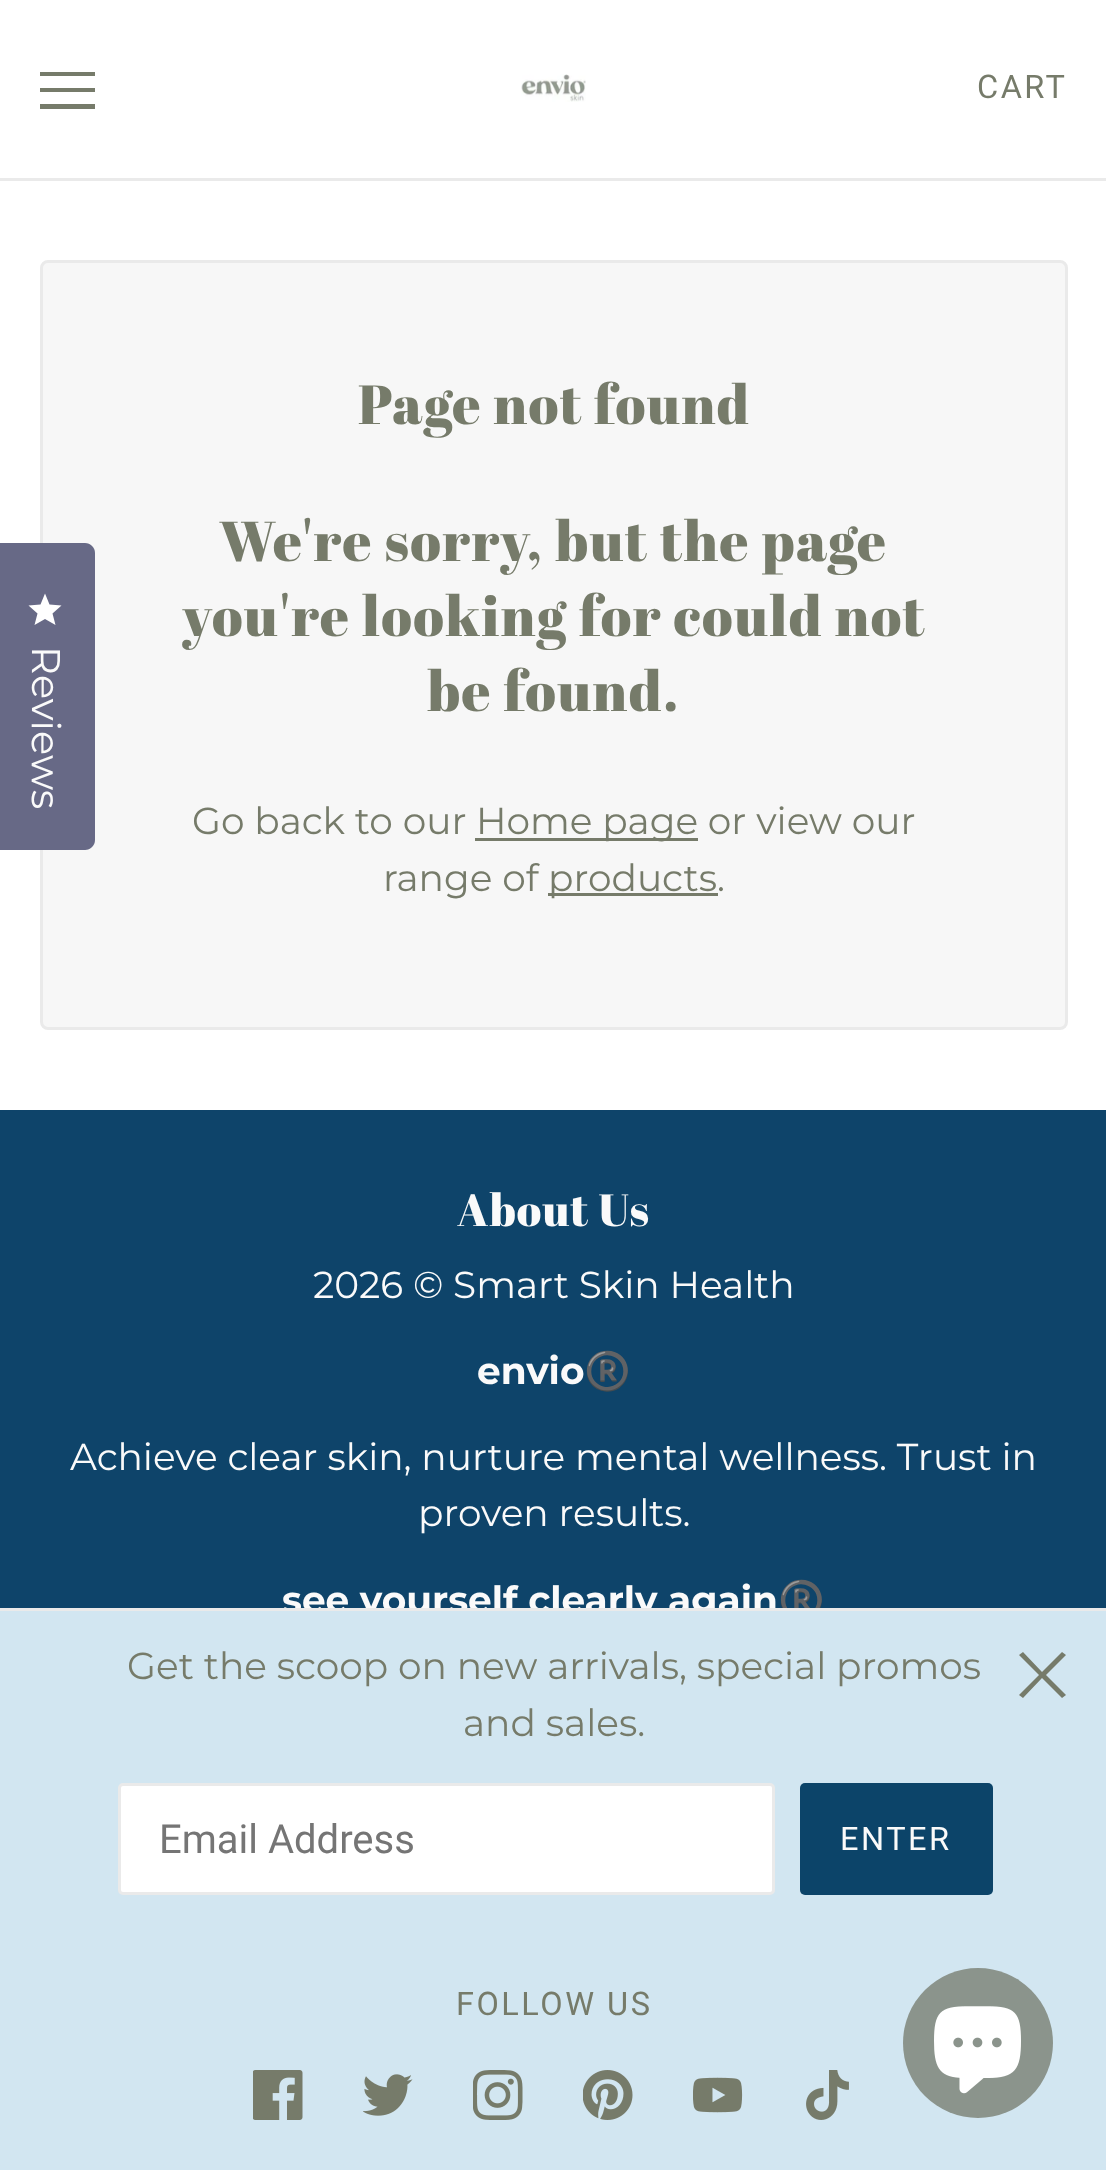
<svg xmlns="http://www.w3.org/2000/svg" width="1106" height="2170">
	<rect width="100%" height="100%" fill="#FFFFFF" />
	<rect x="41.5" y="261.5" width="1025" height="767" rx="6.5" fill="#F7F7F7" stroke="#EAEAEA" stroke-width="3" />
	<path d="M-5 543H85C90.5 543 95 547.5 95 553V840C95 845.5 90.5 850 85 850H-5Z" fill="#676986" />
	<path d="M45 619L55.5 625L52.5 613.5L61.5 605.5L49.5 604.5L45 593.5L40.5 604.5L28.5 605.5L37.5 613.5L34.5 625Z" fill="#FFFFFF" />
	<text x="32" y="646" transform="rotate(90.1 32 646)" font-family="Montserrat" font-size="40" fill="#FAFAFA">Reviews</text>
	<rect x="0" y="178" width="1106" height="3" fill="#EAEAEA" />
	<path d="M40 76V72H95V76ZM40 92V88H95V92ZM40 109V104H95V109Z" fill="#767B6A" />
	<image x="521" y="74" width="65" height="28" href="assets/img1.png" />
	<text x="977" y="98" font-family="Roboto" font-size="32.5" letter-spacing="2.5" fill="#767B6A">CART</text>
	<text x="358" y="424" font-family="Abril Fatface" font-size="55" letter-spacing="1.4" fill="#767B6A">Page not found</text>
	<g font-family="Abril Fatface" font-size="56.25" letter-spacing="1.4" fill="#767B6A">
		<text x="219" y="561">We're sorry, but the page</text>
		<text x="182" y="636">you're looking for could not</text>
		<text x="427" y="711">be found.</text>
	</g>
	<text x="192" y="834" font-family="Montserrat" font-size="37.5" fill="#767B6A">Go back to our</text>
	<rect x="475" y="838" width="223" height="3" fill="#767B6A" />
	<g font-family="Montserrat" font-size="37.5" fill="#767B6A">
		<text x="476" y="834">Home page or view our</text>
		<text x="383" y="891">range of</text>
	</g>
	<rect x="548" y="893" width="170" height="3" fill="#767B6A" />
	<text x="548" y="891" font-family="Montserrat" font-size="37.5" fill="#767B6A">products.</text>
	<rect x="0" y="1110" width="1106" height="498" fill="#0E446A" />
	<text x="457" y="1226" font-family="Abril Fatface" font-size="45" letter-spacing="1" fill="#FAFAFA">About Us</text>
	<text x="313" y="1298" font-family="Montserrat" font-size="37.5" fill="#FAFAFA">2026 © Smart Skin Health</text>
	<text x="477" y="1384" font-family="Montserrat" font-size="37.5" font-weight="700" fill="#FAFAFA">envio</text>
	<text x="584" y="1384" font-family="Noto Color Emoji" font-size="37.5" font-weight="700" fill="#FAFAFA">®️</text>
	<g font-family="Montserrat" font-size="37.5" fill="#FAFAFA">
		<text x="70" y="1470">Achieve clear skin, nurture mental wellness. Trust in</text>
		<text x="418" y="1526">proven results.</text>
	</g>
	<text x="282" y="1613" font-family="Montserrat" font-size="37.5" font-weight="700" fill="#FAFAFA">see yourself clearly again</text>
	<text x="778" y="1613" font-family="Noto Color Emoji" font-size="37.5" fill="#FAFAFA">®️</text>
	<rect x="0" y="1611" width="1106" height="559" fill="#D2E6F1" />
	<rect x="0" y="1608" width="1106" height="3" fill="#EAEAEA" />
	<g font-family="Montserrat" font-size="37.5" fill="#767B6A">
		<text x="127" y="1679">Get the scoop on new arrivals, special promos</text>
		<text x="463" y="1736">and sales.</text>
	</g>
	<rect x="119.5" y="1784.5" width="654" height="109" rx="3.5" fill="#FFFFFF" stroke="#EAEAEA" stroke-width="3" />
	<text x="159" y="1853" font-family="Roboto" font-size="40" fill="#757575">Email Address</text>
	<rect x="800" y="1783" width="193" height="112" rx="5" fill="#0C4469" />
	<text x="840" y="1850" font-family="Roboto" font-size="32.5" letter-spacing="2.5" fill="#FAFAFA">ENTER</text>
	<path d="M1042 1672L1062 1652L1066 1655L1046 1675L1066 1695L1062 1698L1042 1678L1023 1698L1019 1695L1039 1675L1019 1655L1023 1652Z" fill="#767B6A" />
	<text x="456" y="2015" font-family="Roboto" font-size="32.5" letter-spacing="2.5" fill="#767B6A">FOLLOW US</text>
	<image x="253" y="2070" width="50" height="50" href="assets/img2.png" />
	<image x="363" y="2074" width="50" height="42" href="assets/img3.png" />
	<image x="473" y="2070" width="50" height="50" href="assets/img4.png" />
	<image x="583" y="2070" width="50" height="50" href="assets/img5.png" />
	<image x="693" y="2077" width="50" height="36" href="assets/img6.png" />
	<image x="806" y="2070" width="43" height="50" href="assets/img7.png" />
	<circle cx="978" cy="2043" r="75" fill="#8B948C" />
	<image x="934" y="2006" width="87" height="88" href="assets/img8.png" />
</svg>
